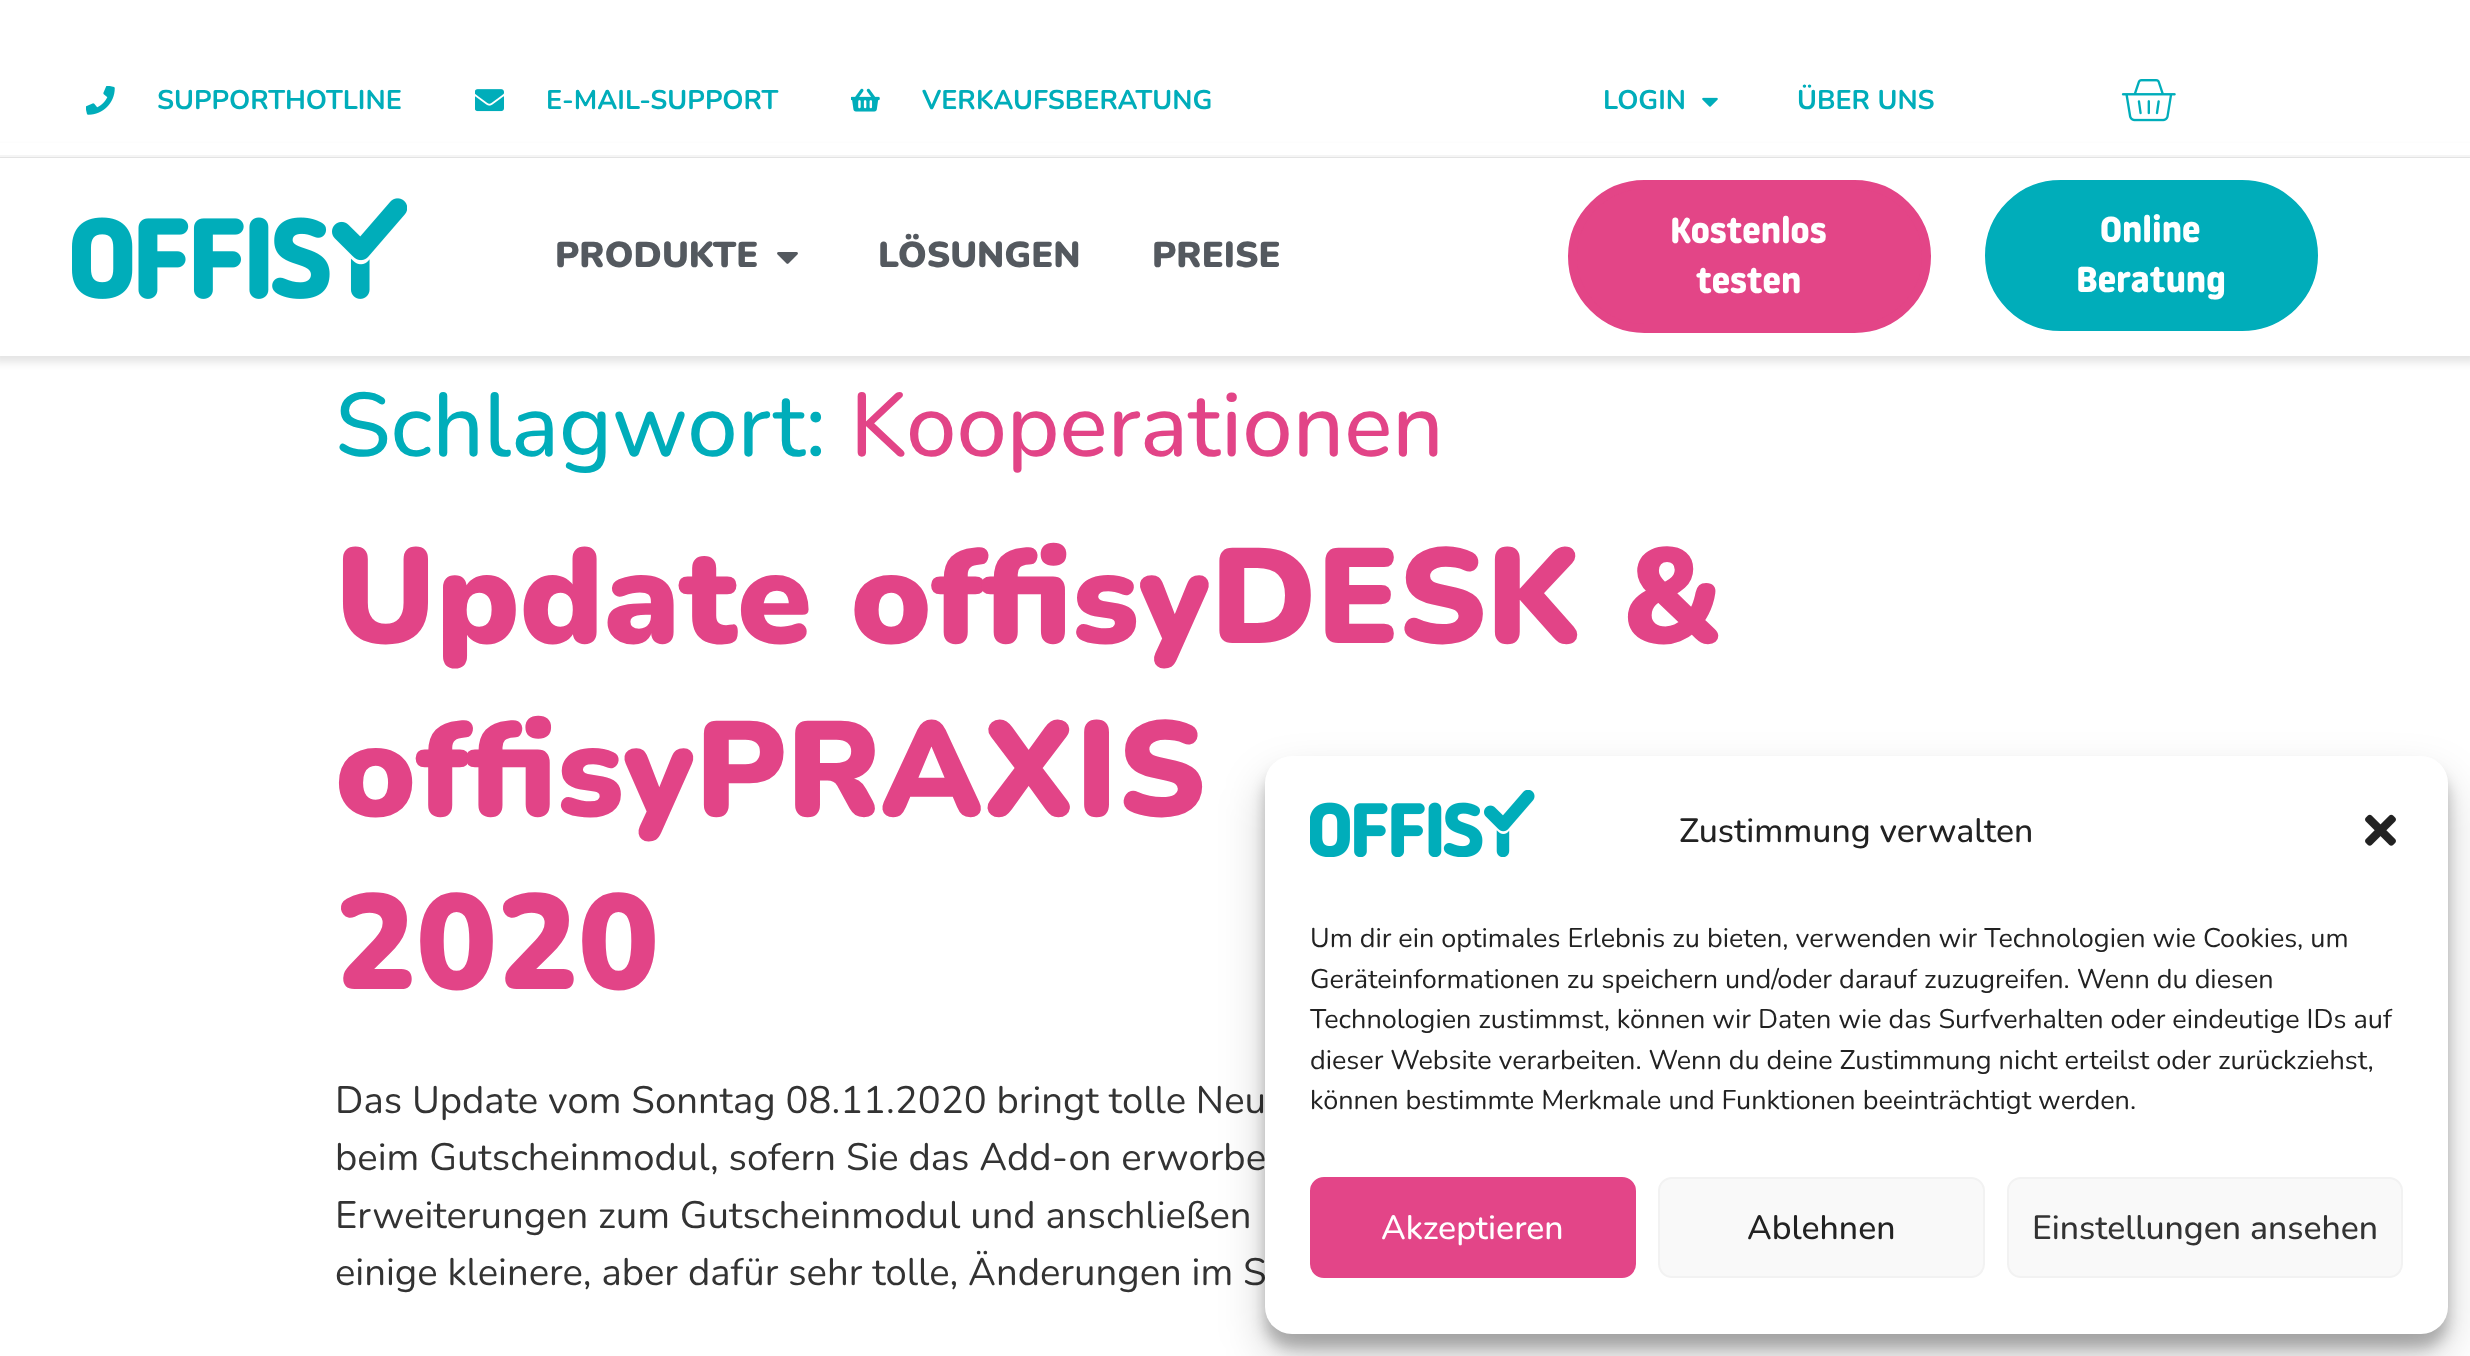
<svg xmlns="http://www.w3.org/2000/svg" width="2470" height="1356">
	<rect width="100%" height="100%" fill="#FFFFFF" />
	<rect x="-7" y="149" width="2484" height="213" fill="#000000" fill-opacity="0.11" filter="blur(4.5px)" />
	<rect x="0" y="143" width="2470" height="12" fill="#FFFFFF" />
	<image x="86" y="86" width="29" height="29" href="assets/img1.png" />
	<text x="157" y="109" font-family="Nunito" font-size="27" font-weight="700" fill="#00ADBA">SUPPORTHOTLINE</text>
	<image x="475" y="89" width="29" height="23" href="assets/img2.png" />
	<text x="546" y="109" font-family="Nunito" font-size="27" font-weight="700" fill="#00ADBA">E-MAIL-SUPPORT</text>
	<image x="851" y="88" width="29" height="24" href="assets/img3.png" />
	<g font-family="Nunito" font-size="27" font-weight="700" fill="#00ADBA">
		<text x="922" y="109">VERKAUFSBERATUNG</text>
		<text x="1603" y="109">LOGIN</text>
	</g>
	<image x="1702" y="97" width="16" height="10" href="assets/img4.png" />
	<text x="1797" y="109" font-family="Nunito" font-size="27" font-weight="700" fill="#00ADBA">ÜBER UNS</text>
	<image x="2121" y="79" width="55" height="43" href="assets/img5.png" />
	<rect x="0" y="158" width="2470" height="198" fill="#FFFFFF" />
	<rect x="0" y="155" width="2470" height="2" fill="#F5F5F5" />
	<image x="72" y="198" width="335" height="101" href="assets/img6.png" />
	<text x="555" y="267" font-family="'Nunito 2'" font-size="36" font-weight="900" fill="#54595F">PRODUKTE</text>
	<image x="777" y="252" width="21" height="12" href="assets/img7.png" />
	<g font-family="'Nunito 2'" font-size="36" font-weight="900" fill="#54595F">
		<text x="878" y="267">LÖSUNGEN</text>
		<text x="1152" y="267">PREISE</text>
	</g>
	<rect x="1572.5" y="184.5" width="354" height="144" rx="72" fill="#E34587" stroke="#E34587" stroke-width="9" />
	<g font-family="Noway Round" font-size="36" font-weight="700" fill="#FFFFFF">
		<text x="1670" y="243">Kostenlos</text>
		<text x="1696" y="293">testen</text>
	</g>
	<rect x="1980.5" y="175.5" width="342" height="160" rx="80" fill="#00ADBA" stroke="#FFFFFF" stroke-width="9" />
	<g font-family="Noway Round" font-size="36" font-weight="700" fill="#FFFFFF">
		<text x="2100" y="242">Online</text>
		<text x="2076" y="292">Beratung</text>
	</g>
	<text x="335" y="456" font-family="Nunito" font-size="90" font-weight="500" fill="#00ADBA">Schlagwort:</text>
	<text x="850" y="456" font-family="Nunito" font-size="90" font-weight="500" fill="#E24487">Kooperationen</text>
	<g font-family="Nunito" font-size="135" font-weight="900" fill="#E24487">
		<text x="335" y="643">Update offisyDESK &amp;</text>
		<text x="335" y="816">offisyPRAXIS</text>
		<text x="335" y="989">2020</text>
	</g>
	<g font-family="Nunito" font-size="38.25" fill="#333333">
		<text x="335" y="1113">Das Update vom Sonntag 08.11.2020 bringt tolle Neu</text>
		<text x="335" y="1170">beim Gutscheinmodul, sofern Sie das Add-on erworbe</text>
		<text x="335" y="1228">Erweiterungen zum Gutscheinmodul und anschließen</text>
		<text x="335" y="1285">einige kleinere, aber dafür sehr tolle, Änderungen im S</text>
	</g>
	<rect x="1265" y="770" width="1183" height="578" rx="27" fill="#000000" fill-opacity="0.23" filter="blur(7px)" />
	<rect x="1265" y="779" width="1183" height="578" rx="27" fill="#000000" fill-opacity="0.19" filter="blur(22.5px)" />
	<rect x="1265" y="756" width="1183" height="578" rx="27" fill="#FFFFFF" />
	<image x="1310" y="790" width="225" height="67" href="assets/img8.png" />
	<text x="1679" y="842" font-family="Nunito" font-size="33.75" font-weight="500" fill="#222222">Zustimmung verwalten</text>
	<image x="2365" y="814" width="31" height="32" href="assets/img9.png" />
	<g font-family="Nunito" font-size="27" fill="#222222">
		<text x="1310" y="947">Um dir ein optimales Erlebnis zu bieten, verwenden wir Technologien wie Cookies, um</text>
		<text x="1310" y="988">Geräteinformationen zu speichern und/oder darauf zuzugreifen. Wenn du diesen</text>
		<text x="1310" y="1028">Technologien zustimmst, können wir Daten wie das Surfverhalten oder eindeutige IDs auf</text>
		<text x="1310" y="1069">dieser Website verarbeiten. Wenn du deine Zustimmung nicht erteilst oder zurückziehst,</text>
		<text x="1310" y="1109">können bestimmte Merkmale und Funktionen beeinträchtigt werden.</text>
	</g>
	<rect x="1311" y="1178" width="324" height="99" rx="13" fill="#E34588" stroke="#E34588" stroke-width="2" />
	<text x="1381" y="1239" font-family="Nunito" font-size="33.75" font-weight="500" fill="#FFFFFF">Akzeptieren</text>
	<rect x="1659" y="1178" width="325" height="99" rx="13" fill="#F9F9F9" stroke="#F2F2F2" stroke-width="2" />
	<text x="1747" y="1239" font-family="Nunito" font-size="33.75" font-weight="500" fill="#222222">Ablehnen</text>
	<rect x="2008" y="1178" width="394" height="99" rx="13" fill="#F9F9F9" stroke="#F2F2F2" stroke-width="2" />
	<text x="2032" y="1239" font-family="Nunito" font-size="33.75" font-weight="500" fill="#333333">Einstellungen ansehen</text>
</svg>
